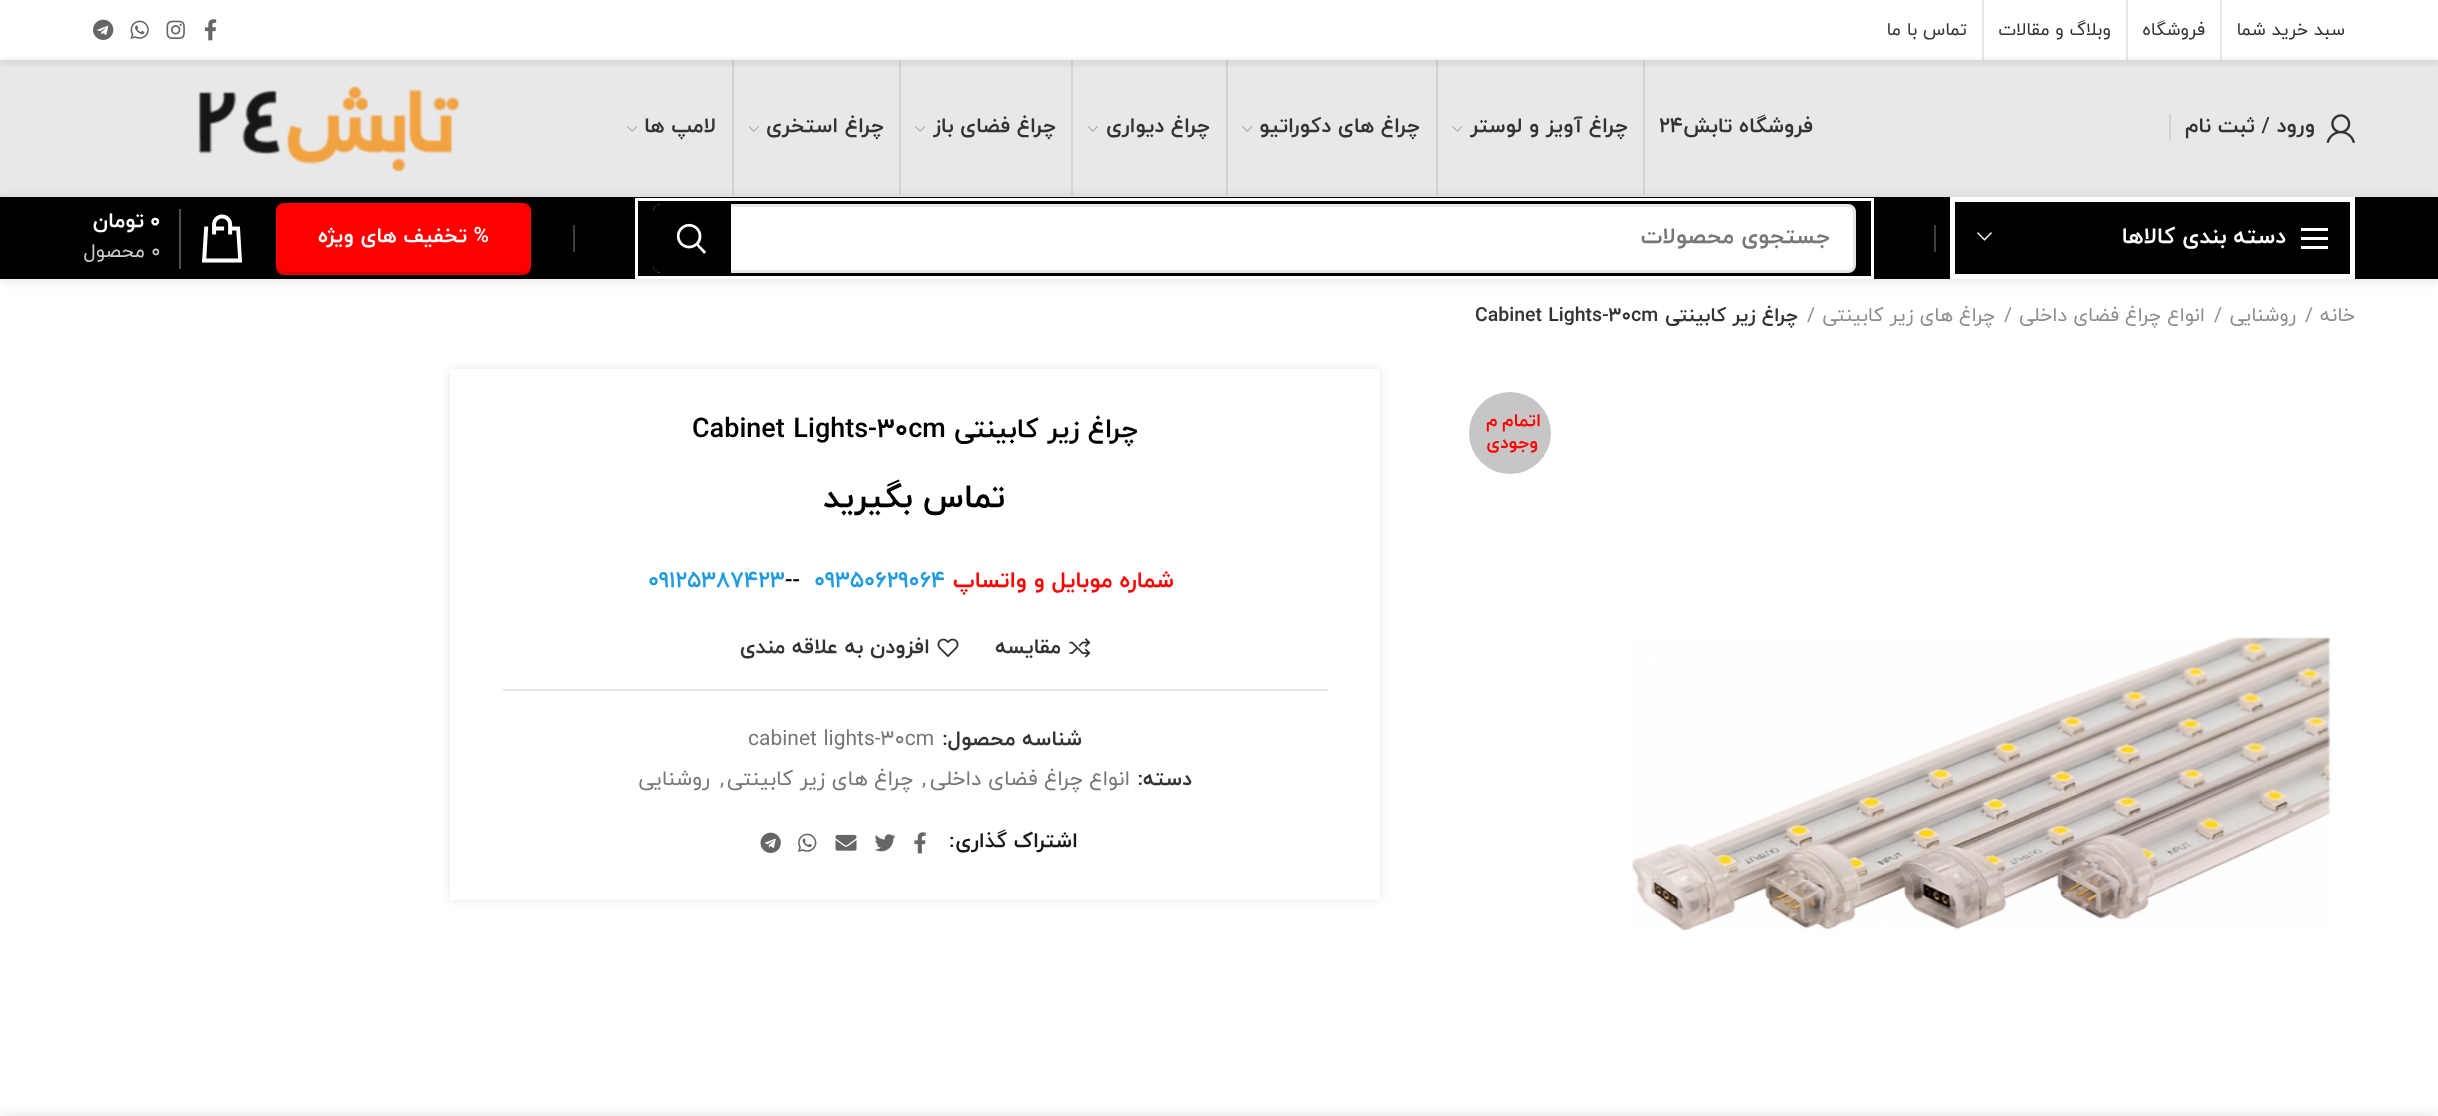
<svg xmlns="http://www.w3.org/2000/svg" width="2438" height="1116">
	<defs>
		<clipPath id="clip1"><rect x="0" y="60" width="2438" height="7" /></clipPath>
		<clipPath id="clip2"><rect x="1" y="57" width="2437" height="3" /></clipPath>
		<clipPath id="clip3"><path d="M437 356H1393V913H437ZM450 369H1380V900H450Z" clip-rule="evenodd" /></clipPath>
	</defs>
	<rect width="100%" height="100%" fill="#FFFFFF" />
	<g clip-path="url(#clip1)">
		<rect x="0" y="2" width="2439" height="60" fill="#000000" fill-opacity="0.1" filter="blur(6px)" />
	</g>
	<text x="2345" y="35" font-family="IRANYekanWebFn" font-size="18" direction="rtl" fill="#333333">سبد خرید شما</text>
	<g clip-path="url(#clip2)">
		<rect x="0" y="62" width="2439" height="136" fill="#000000" fill-opacity="0.1" filter="blur(6px)" />
	</g>
	<rect x="2220" y="0" width="2" height="60" fill="#818181" fill-opacity="0.2" />
	<text x="2205" y="35" font-family="IRANYekanWebFn" font-size="18" direction="rtl" fill="#333333">فروشگاه</text>
	<rect x="2126" y="0" width="2" height="60" fill="#818181" fill-opacity="0.2" />
	<text x="2111" y="35" font-family="IRANYekanWebFn" font-size="18" direction="rtl" fill="#333333">وبلاگ و مقالات</text>
	<rect x="1982" y="0" width="2" height="60" fill="#818181" fill-opacity="0.2" />
	<text x="1967" y="35" font-family="IRANYekanWebFn" font-size="18" direction="rtl" fill="#333333">تماس با ما</text>
	<image x="204" y="19" width="13" height="22" href="assets/img1.png" />
	<image x="166" y="20" width="19" height="19" href="assets/img2.png" />
	<image x="130" y="20" width="19" height="19" href="assets/img3.png" />
	<image x="93" y="19" width="21" height="21" href="assets/img4.png" />
	<rect x="0" y="60" width="2438" height="135" fill="#000000" fill-opacity="0.09" />
	<rect x="0" y="195" width="2438" height="2" fill="#E8E8E8" />
	<image x="2326" y="114" width="29" height="29" href="assets/img5.png" />
	<text x="2315" y="132" font-family="IRANYekanWebFn" font-size="21" font-weight="700" direction="rtl" fill="#333333">ورود / ثبت نام</text>
	<rect x="2169" y="114" width="2" height="27" fill="#D3D3D3" />
	<text x="1813" y="132" font-family="IRANYekanWebFn" font-size="21" font-weight="700" direction="rtl" fill="#333333">فروشگاه تابش</text>
	<text x="1659" y="132" font-family="IRANYekanWebFn" font-size="21" font-weight="700" fill="#333333">24</text>
	<rect x="0" y="198" width="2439" height="83" fill="#000000" fill-opacity="0.1" filter="blur(6px)" />
	<rect x="1643" y="60" width="2" height="135" fill="#818181" fill-opacity="0.2" />
	<text x="1628" y="132" font-family="IRANYekanWebFn" font-size="21" font-weight="700" direction="rtl" fill="#333333">چراغ آویز و لوستر</text>
	<image x="1452" y="126" width="11" height="6" href="assets/img6.png" />
	<rect x="1436" y="60" width="2" height="135" fill="#818181" fill-opacity="0.2" />
	<text x="1420" y="132" font-family="IRANYekanWebFn" font-size="21" font-weight="700" direction="rtl" fill="#333333">چراغ های دکوراتیو</text>
	<image x="1242" y="126" width="11" height="6" href="assets/img6.png" />
	<rect x="1226" y="60" width="2" height="135" fill="#818181" fill-opacity="0.2" />
	<text x="1210" y="132" font-family="IRANYekanWebFn" font-size="21" font-weight="700" direction="rtl" fill="#333333">چراغ دیواری</text>
	<image x="1087" y="126" width="11" height="6" href="assets/img7.png" />
	<rect x="1071" y="60" width="2" height="135" fill="#818181" fill-opacity="0.2" />
	<text x="1056" y="132" font-family="IRANYekanWebFn" font-size="21" font-weight="700" direction="rtl" fill="#333333">چراغ فضای باز</text>
	<image x="915" y="126" width="11" height="6" href="assets/img6.png" />
	<rect x="899" y="60" width="2" height="135" fill="#818181" fill-opacity="0.2" />
	<text x="884" y="132" font-family="IRANYekanWebFn" font-size="21" font-weight="700" direction="rtl" fill="#333333">چراغ استخری</text>
	<image x="748" y="126" width="11" height="6" href="assets/img7.png" />
	<rect x="732" y="60" width="2" height="135" fill="#818181" fill-opacity="0.2" />
	<text x="716" y="132" font-family="IRANYekanWebFn" font-size="21" font-weight="700" direction="rtl" fill="#333333">لامپ ها</text>
	<image x="627" y="126" width="11" height="6" href="assets/img6.png" />
	<image x="198" y="86" width="262" height="86" href="assets/img8.png" />
	<rect x="0" y="197" width="2438" height="82" fill="#000000" />
	<rect x="1952.5" y="199.5" width="400" height="77" fill="none" stroke="#FFFFFF" stroke-width="5" />
	<rect x="2301" y="237" width="27" height="3" fill="#FFFFFF" />
	<rect x="2301" y="228" width="27" height="3" fill="#FFFFFF" />
	<rect x="2301" y="246" width="27" height="3" fill="#FFFFFF" />
	<text x="2286" y="243" font-family="IRANYekanWebFn" font-size="22.5" font-weight="700" direction="rtl" fill="#FFFFFF">دسته بندی کالاها</text>
	<image x="1977" y="232" width="15" height="9" href="assets/img9.png" />
	<rect x="1934" y="225" width="2" height="27" fill="#404040" />
	<rect x="636.5" y="199.5" width="1236" height="78" fill="none" stroke="#FFFFFF" stroke-width="3" />
	<rect x="653" y="204" width="1203" height="69" rx="8" fill="#FFFFFF" />
	<rect x="654.5" y="205.5" width="1200" height="66" rx="6.5" fill="none" stroke="#818181" stroke-opacity="0.2" stroke-width="3" />
	<text x="1830" y="243" font-family="IRANYekanWebFn" font-size="22.5" font-weight="700" direction="rtl" fill="#777777">جستجوی محصولات</text>
	<path d="M661 204H731V273H661C656.5 273 653 269.5 653 265V212C653 207.5 656.5 204 661 204Z" fill="#000000" />
	<image x="676" y="223" width="31" height="31" href="assets/img10.png" />
	<rect x="573" y="225" width="2" height="27" fill="#404040" />
	<rect x="276" y="203" width="255" height="72" rx="8" fill="#FF0000" />
	<path d="M276 264V267C276 271 280 275 284 275H523C527 275 531 271 531 267V264C531 268 528 272 524 272H284C279 272 276 268 276 264Z" fill="#000000" fill-opacity="0.15" />
	<text x="489" y="242" font-family="IRANYekanWebFn" font-size="21" font-weight="700" direction="rtl" fill="#FFFFFF">% تخفیف های ویژه</text>
	<image x="201" y="214" width="42" height="49" href="assets/img11.png" />
	<rect x="179" y="209" width="2" height="60" fill="#4D4D4D" />
	<text x="150" y="227" font-family="IRANYekanWebFn" font-size="21" font-weight="700" fill="#FFFFFF">۰</text>
	<text x="144" y="227" font-family="IRANYekanWebFn" font-size="21" font-weight="700" direction="rtl" fill="#FFFFFF">تومان</text>
	<text x="151" y="257" font-family="IRANYekanWebFn" font-size="19.5" fill="#CCCCCC">0</text>
	<text x="145" y="257" font-family="IRANYekanWebFn" font-size="19.5" direction="rtl" fill="#CCCCCC">محصول</text>
	<text x="2355" y="321" font-family="IRANYekanWebFn" font-size="19.5" direction="rtl" fill="#8E8E8E">خانه</text>
	<text x="2305" y="321" font-family="IRANYekanWebFn" font-size="19.5" fill="#8E8E8E">/</text>
	<text x="2296" y="321" font-family="IRANYekanWebFn" font-size="19.5" direction="rtl" fill="#8E8E8E">روشنایی</text>
	<text x="2214" y="321" font-family="IRANYekanWebFn" font-size="19.5" fill="#8E8E8E">/</text>
	<text x="2205" y="321" font-family="IRANYekanWebFn" font-size="19.5" direction="rtl" fill="#8E8E8E">انواع چراغ فضای داخلی</text>
	<text x="2004" y="321" font-family="IRANYekanWebFn" font-size="19.5" fill="#8E8E8E">/</text>
	<text x="1995" y="321" font-family="IRANYekanWebFn" font-size="19.5" direction="rtl" fill="#8E8E8E">چراغ های زیر کابینتی</text>
	<text x="1807" y="321" font-family="IRANYekanWebFn" font-size="19.5" fill="#8E8E8E">/</text>
	<text x="1798" y="321" font-family="IRANYekanWebFn" font-size="19.5" font-weight="700" direction="rtl" fill="#333333">چراغ زیر کابینتی</text>
	<text x="1475" y="321" font-family="IRANYekanWebFn" font-size="19.5" font-weight="700" fill="#333333">Cabinet Lights-30cm</text>
	<circle cx="1510" cy="433" r="41" fill="#C6C6C6" />
	<g font-family="IRANYekanWebFn" font-size="18" font-weight="700" letter-spacing="0.5" direction="rtl" fill="#FF0000">
		<text x="1541" y="426" word-spacing="-1">اتمام م</text>
		<text x="1538" y="448">وجودی</text>
	</g>
	<image x="1631" y="637" width="700" height="294" href="assets/img12.png" />
	<g clip-path="url(#clip3)">
		<rect x="450" y="369" width="930" height="531" fill="#000000" fill-opacity="0.1" filter="blur(4px)" />
	</g>
	<text x="1138" y="437" font-family="IRANYekanWebFn" font-size="27" font-weight="700" direction="rtl" fill="#000000">چراغ زیر کابینتی</text>
	<text x="692" y="437" font-family="IRANYekanWebFn" font-size="27" font-weight="700" fill="#000000">Cabinet Lights-30cm</text>
	<text x="1005" y="507" font-family="IRANYekanWebFn" font-size="33" font-weight="700" direction="rtl" fill="#000000">تماس بگیرید</text>
	<text x="1174" y="587" font-family="IRANYekanWebFn" font-size="22.5" font-weight="700" direction="rtl" fill="#FF0000">شماره موبایل و واتساپ</text>
	<text x="814" y="587" font-family="IRANYekanWebFn" font-size="22.5" font-weight="700" fill="#239BE0">09350629064</text>
	<text x="785" y="587" font-family="IRANYekanWebFn" font-size="22.5" font-weight="700" fill="#000000">--</text>
	<text x="648" y="587" font-family="IRANYekanWebFn" font-size="22.5" font-weight="700" fill="#239BE0">09125387423</text>
	<image x="1069" y="638" width="22" height="20" href="assets/img13.png" />
	<text x="1061" y="653" font-family="IRANYekanWebFn" font-size="21" font-weight="700" direction="rtl" fill="#333333">مقایسه</text>
	<image x="937" y="638" width="22" height="19" href="assets/img14.png" />
	<text x="930" y="653" font-family="IRANYekanWebFn" font-size="21" font-weight="700" direction="rtl" fill="#333333">افزودن به علاقه مندی</text>
	<rect x="503" y="689" width="825" height="2" fill="#E6E6E6" />
	<text x="1082" y="745" font-family="IRANYekanWebFn" font-size="21" font-weight="700" direction="rtl" fill="#333333">شناسه محصول:</text>
	<text x="748" y="745" font-family="IRANYekanWebFn" font-size="21" fill="#777777">cabinet lights-30cm</text>
	<text x="1192" y="785" font-family="IRANYekanWebFn" font-size="21" font-weight="700" direction="rtl" fill="#333333">دسته:</text>
	<text x="1130" y="785" font-family="IRANYekanWebFn" font-size="21" direction="rtl" fill="#777777">انواع چراغ فضای داخلی</text>
	<text x="922" y="785" font-family="IRANYekanWebFn" font-size="21" fill="#777777">,</text>
	<text x="913" y="785" font-family="IRANYekanWebFn" font-size="21" direction="rtl" fill="#777777">چراغ های زیر کابینتی</text>
	<text x="720" y="785" font-family="IRANYekanWebFn" font-size="21" fill="#777777">,</text>
	<text x="710" y="785" font-family="IRANYekanWebFn" font-size="21" direction="rtl" fill="#777777">روشنایی</text>
	<text x="1078" y="847" font-family="IRANYekanWebFn" font-size="21" font-weight="700" direction="rtl" fill="#1B1919">اشتراک گذاری</text>
	<text x="949" y="847" font-family="IRANYekanWebFn" font-size="21" font-weight="700" fill="#1B1919">:</text>
	<image x="914" y="832" width="12" height="22" href="assets/img15.png" />
	<image x="874" y="834" width="22" height="18" href="assets/img16.png" />
	<image x="835" y="834" width="22" height="17" href="assets/img17.png" />
	<image x="798" y="833" width="19" height="19" href="assets/img18.png" />
	<image x="760" y="832" width="21" height="21" href="assets/img19.png" />
	<rect x="0" y="1116" width="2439" height="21" fill="#000000" fill-opacity="0.12" filter="blur(7px)" />
</svg>
